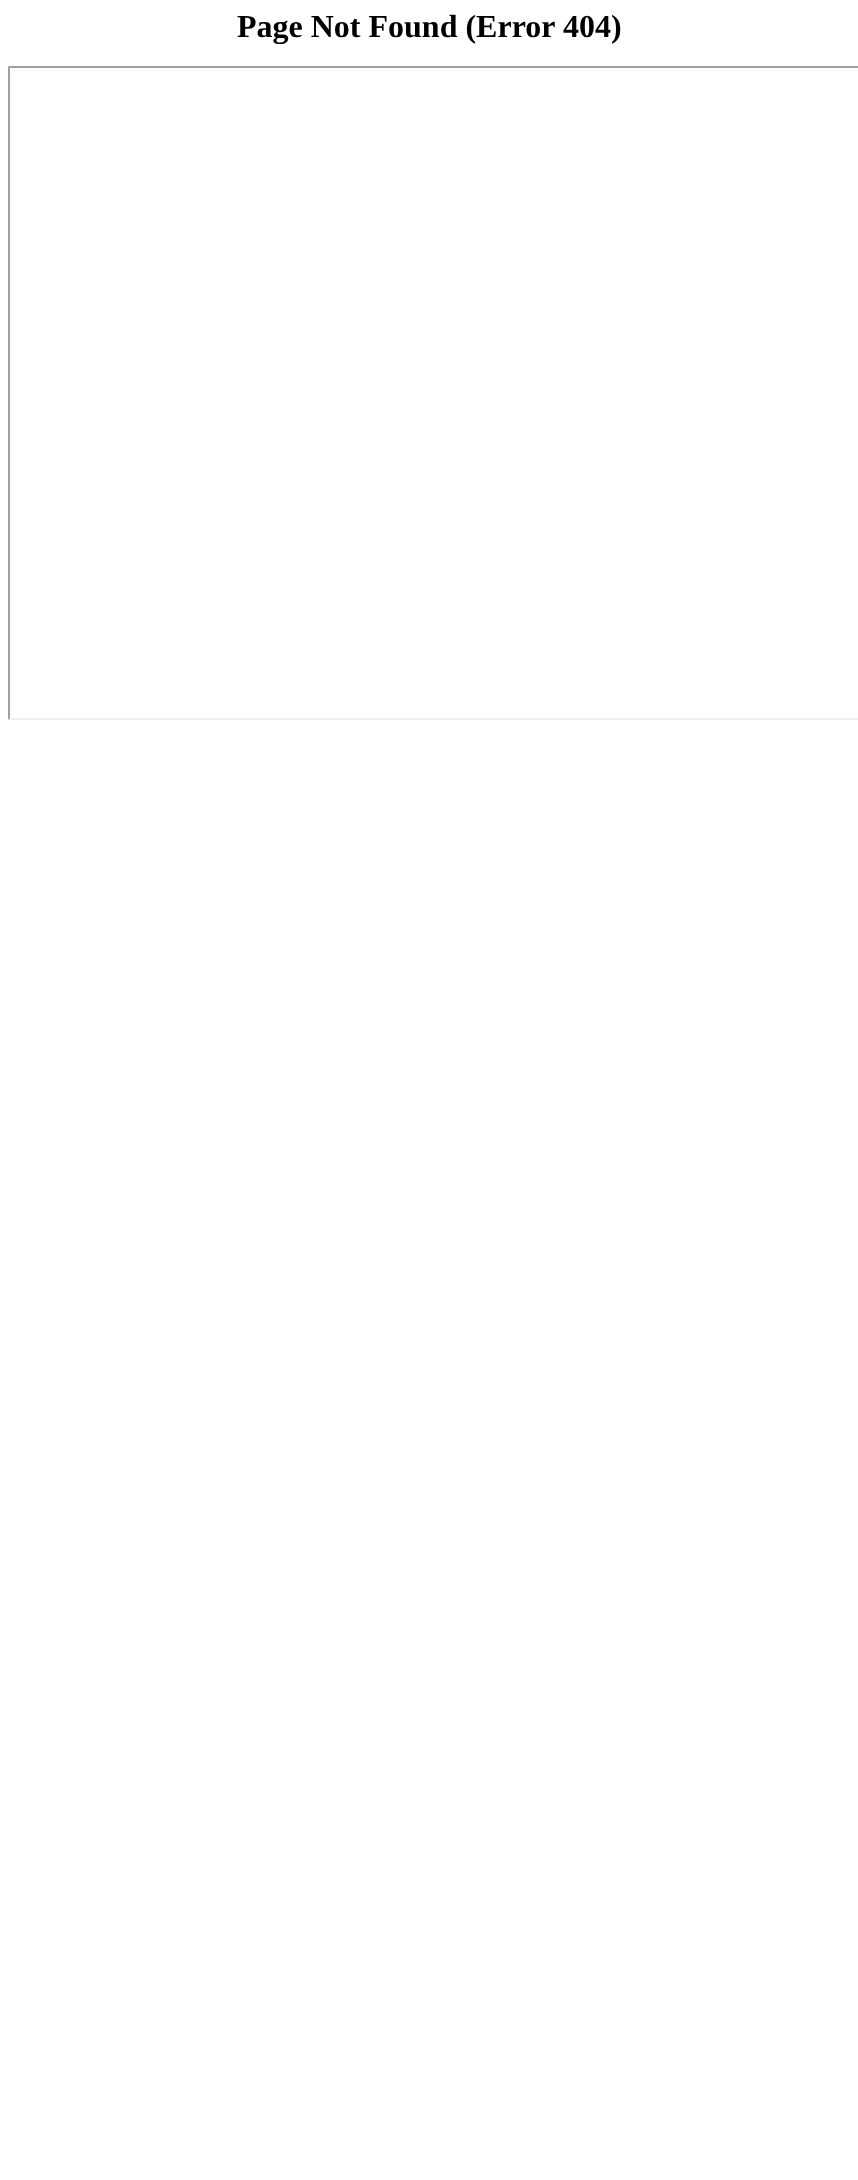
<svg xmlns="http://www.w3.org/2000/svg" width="858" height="2180">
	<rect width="100%" height="100%" fill="#FFFFFF" />
	<text x="237" y="37" font-family="Liberation Serif" font-size="32" font-weight="700" fill="#000000">Page Not Found (Error 404)</text>
	<path d="M8 66H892L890 68H10Z" fill="#9F9F9F" />
	<path d="M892 720H8L10 718H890Z" fill="#EEEEEE" />
	<path d="M8 720V66L10 68V718Z" fill="#9F9F9F" />
</svg>
